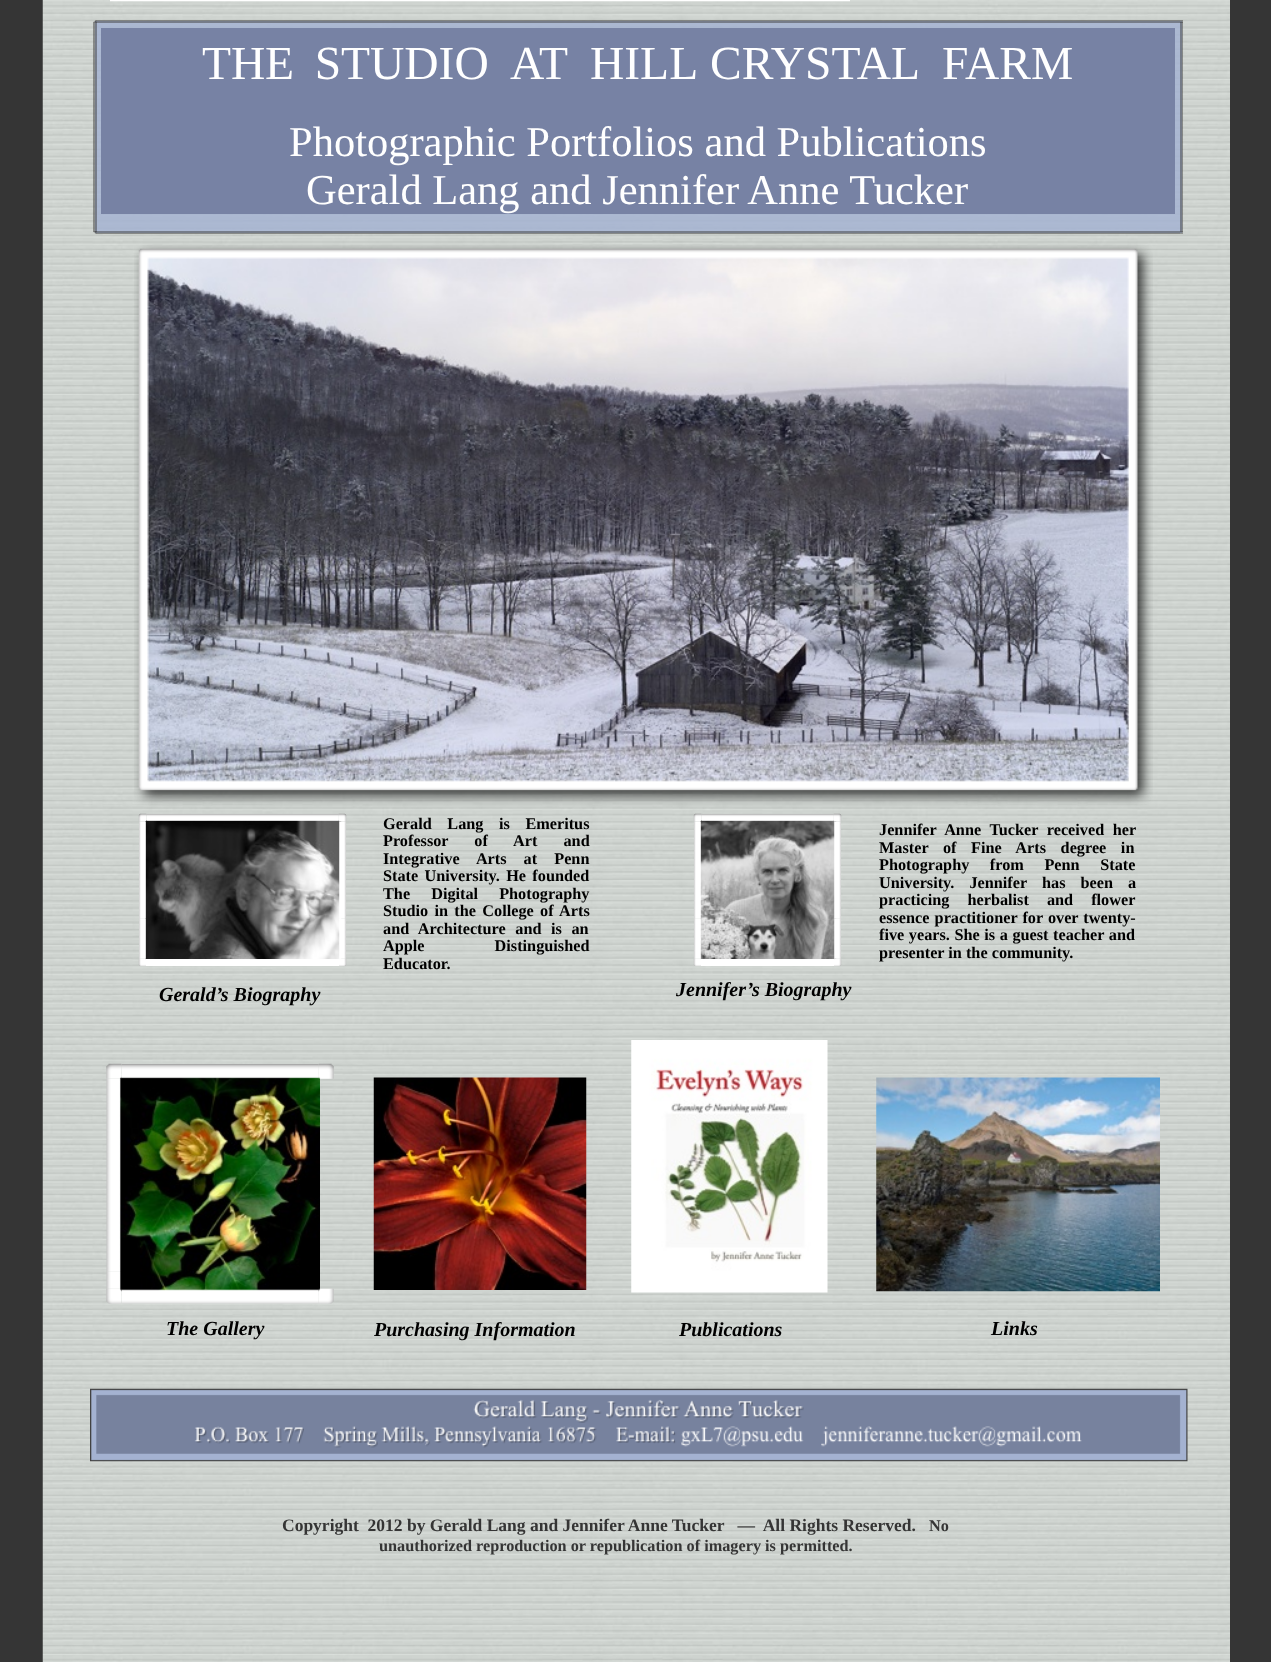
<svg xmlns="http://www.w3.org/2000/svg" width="1271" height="1662">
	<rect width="100%" height="100%" fill="#353535" />
	<image x="42" y="0" width="1188" height="1662" href="assets/img1.png" />
	<image x="110" y="0" width="740" height="2" href="assets/img2.png" />
	<rect x="95" y="21" width="1087" height="212" fill="#A3B1D1" fill-opacity="0.81" />
	<rect x="93" y="22" width="4" height="210" fill="#404040" fill-opacity="0.5" />
	<image x="93" y="20" width="4" height="3" href="assets/img3.png" />
	<rect x="96" y="20" width="1084" height="3" fill="#404040" fill-opacity="0.5" />
	<rect x="1180" y="20" width="3" height="3" fill="#404040" fill-opacity="0.5" />
	<rect x="101" y="28" width="1074" height="186" fill="#7782A4" />
	<text x="202" y="79" font-family="Liberation Serif" font-size="47.5" fill="#FFFFFF">TH</text>
	<text x="265" y="79" font-family="Liberation Serif" font-size="47.5" letter-spacing="-1" fill="#FFFFFF" xml:space="preserve">E  S</text>
	<g font-family="Liberation Serif" font-size="47.5" fill="#FFFFFF">
		<text x="341" y="79">TUDIO</text>
		<text x="510" y="79">AT</text>
		<text x="590" y="79">HILL</text>
		<text x="710" y="79">CRYSTAL</text>
		<text x="942" y="79">FARM</text>
	</g>
	<g font-family="Liberation Serif" font-size="42.5" fill="#FFFFFF">
		<text x="289" y="156">Photographic Portfolios and Publications</text>
		<text x="306" y="204">Gerald Lang and Jennifer Anne Tucker</text>
	</g>
	<rect x="1180" y="22" width="3" height="210" fill="#404040" fill-opacity="0.5" />
	<rect x="96" y="231" width="1084" height="3" fill="#404040" fill-opacity="0.5" />
	<image x="93" y="231" width="4" height="3" href="assets/img4.png" />
	<rect x="1180" y="231" width="3" height="3" fill="#404040" fill-opacity="0.41" />
	<image x="134" y="244" width="1019" height="562" href="assets/img5.png" />
	<image x="145" y="820" width="197" height="140" href="assets/img16.png" />
	<image x="138" y="813" width="9" height="9" href="assets/img6.png" />
	<image x="146" y="814" width="134" height="7" href="assets/img7.png" />
	<image x="338" y="813" width="9" height="9" href="assets/img9.png" />
	<image x="280" y="814" width="59" height="7" href="assets/img8.png" />
	<image x="139" y="821" width="7" height="98" href="assets/img10.png" />
	<image x="138" y="958" width="8" height="8" href="assets/img14.png" />
	<image x="139" y="918" width="7" height="41" href="assets/img11.png" />
	<image x="339" y="821" width="7" height="98" href="assets/img12.png" />
	<image x="339" y="958" width="8" height="8" href="assets/img15.png" />
	<image x="339" y="919" width="7" height="40" href="assets/img13.png" />
	<rect x="146" y="959" width="193" height="7" fill="#FFFFFF" />
	<g font-family="Liberation Serif" font-size="16.25" font-weight="700" fill="#000000">
		<text x="383" y="829" word-spacing="11.5">Gerald Lang is Emeritus</text>
		<text x="383" y="846" word-spacing="22">Professor of Art and</text>
		<text x="383" y="864" word-spacing="13">Integrative Arts at Penn</text>
		<text x="383" y="881" word-spacing="2.25">State University. He founded</text>
		<text x="383" y="899" word-spacing="17">The Digital Photography</text>
		<text x="383" y="916" word-spacing="2.25">Studio in the College of Arts</text>
		<text x="383" y="934" word-spacing="5.5">and Architecture and is an</text>
		<text x="383" y="951" word-spacing="66">Apple Distinguished</text>
		<text x="383" y="969">Educator.</text>
	</g>
	<image x="700" y="820" width="137" height="140" href="assets/img26.png" />
	<image x="693" y="813" width="9" height="9" href="assets/img17.png" />
	<image x="833" y="813" width="9" height="9" href="assets/img19.png" />
	<image x="701" y="814" width="133" height="7" href="assets/img18.png" />
	<image x="694" y="821" width="7" height="98" href="assets/img20.png" />
	<image x="693" y="958" width="8" height="8" href="assets/img24.png" />
	<image x="694" y="918" width="7" height="41" href="assets/img21.png" />
	<image x="834" y="821" width="7" height="98" href="assets/img22.png" />
	<image x="834" y="958" width="8" height="8" href="assets/img25.png" />
	<image x="834" y="918" width="7" height="41" href="assets/img23.png" />
	<rect x="701" y="959" width="133" height="7" fill="#FFFFFF" />
	<g font-family="Liberation Serif" font-size="16.25" font-weight="700" fill="#000000">
		<text x="879" y="835" word-spacing="4.5">Jennifer Anne Tucker received her</text>
		<text x="879" y="853" word-spacing="10.5">Master of Fine Arts degree in</text>
		<text x="879" y="870" word-spacing="16.5">Photography from Penn State</text>
		<text x="879" y="888" word-spacing="11">University. Jennifer has been a</text>
		<text x="879" y="905" word-spacing="14">practicing herbalist and flower</text>
		<text x="879" y="923" word-spacing="1">essence practitioner for over twenty-</text>
		<text x="879" y="940" word-spacing="0.5">five years. She is a guest teacher and</text>
		<text x="879" y="958">presenter in the community.</text>
	</g>
	<g font-family="Liberation Serif" font-size="20" font-weight="700" font-style="italic" fill="#000000">
		<text x="159" y="1001">Gerald’s Biography</text>
		<text x="676" y="996">Jennifer’s Biography</text>
	</g>
	<image x="120" y="1077" width="200" height="215" href="assets/img35.png" />
	<image x="106" y="1063" width="16" height="16" href="assets/img27.png" />
	<image x="318" y="1063" width="16" height="16" href="assets/img29.png" />
	<image x="121" y="1064" width="198" height="15" href="assets/img28.png" />
	<image x="106" y="1079" width="15" height="193" href="assets/img30.png" />
	<image x="106" y="1288" width="16" height="16" href="assets/img32.png" />
	<image x="106" y="1271" width="15" height="18" href="assets/img31.png" />
	<image x="318" y="1288" width="16" height="16" href="assets/img34.png" />
	<image x="121" y="1289" width="198" height="15" href="assets/img33.png" />
	<image x="373" y="1077" width="214" height="213" href="assets/img36.png" />
	<image x="631" y="1040" width="197" height="253" href="assets/img37.png" />
	<image x="876" y="1077" width="284" height="215" href="assets/img38.png" />
	<g font-family="Liberation Serif" font-size="20" font-weight="700" font-style="italic" fill="#000000">
		<text x="166" y="1335">The Gallery</text>
		<text x="374" y="1336">Purchasing Information</text>
		<text x="679" y="1336">Publications</text>
		<text x="991" y="1335">Links</text>
	</g>
	<image x="90" y="1388" width="1098" height="74" href="assets/img39.png" />
	<text x="282" y="1531" font-family="Liberation Serif" font-size="17.5" font-weight="700" fill="#353535" xml:space="preserve">Copyright  2012 by Gerald Lang and Jennifer Anne Tucker   —  All Rights Reserved.</text>
	<g font-family="Liberation Serif" font-size="16.25" font-weight="700" fill="#353535">
		<text x="929" y="1531">No</text>
		<text x="379" y="1551">unauthorized reproduction or republication of imagery is permitted.</text>
	</g>
</svg>
